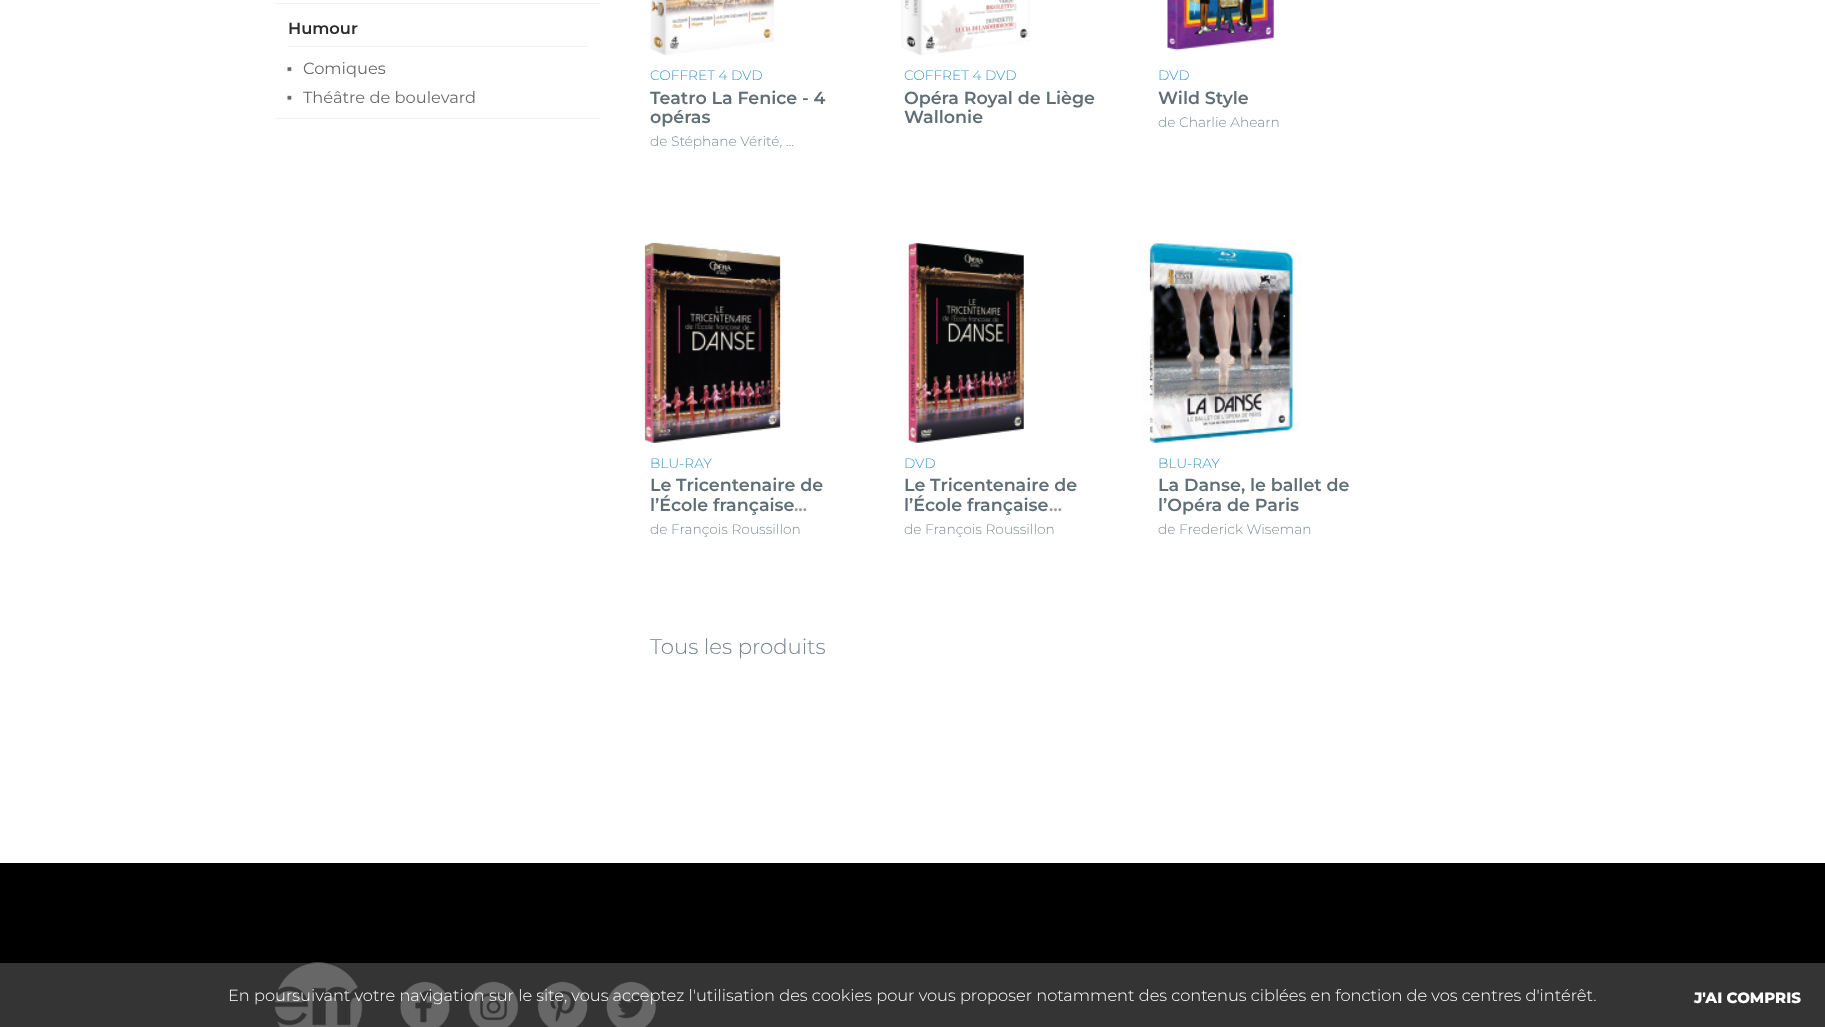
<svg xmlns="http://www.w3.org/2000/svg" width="1825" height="1027">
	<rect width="100%" height="100%" fill="#FFFFFF" />
	<rect x="275" y="3" width="325" height="1" fill="#F3F3F3" />
	<rect x="275" y="118" width="325" height="1" fill="#F3F3F3" />
	<text x="288" y="34" font-family="Montserrat" font-size="16.25" font-weight="600" fill="#2B2C2E">Humour</text>
	<rect x="288" y="46" width="300" height="1" fill="#F3F3F3" />
	<image x="287" y="67" width="5" height="5" href="assets/img1.png" />
	<text x="303" y="74" font-family="Montserrat" font-size="16.25" fill="#696969">Comiques</text>
	<image x="287" y="95" width="5" height="5" href="assets/img2.png" />
	<text x="303" y="103" font-family="Montserrat" font-size="16.25" fill="#696969">Théâtre de boulevard</text>
	<image x="650" y="0" width="124" height="56" href="assets/img3.png" />
	<text x="650" y="80" font-family="Montserrat" font-size="13.75" font-weight="300" fill="#389ACB">COFFRET 4 DVD</text>
	<g font-family="Montserrat" font-size="17.5" font-weight="600" fill="#606E76">
		<text x="650" y="104">Teatro La Fenice - 4</text>
		<text x="650" y="123">opéras</text>
	</g>
	<text x="650" y="146" font-family="Montserrat" font-size="13.75" font-weight="300" fill="#808E96">de Stéphane Vérité, …</text>
	<image x="901" y="0" width="129" height="56" href="assets/img4.png" />
	<text x="904" y="80" font-family="Montserrat" font-size="13.75" font-weight="300" fill="#389ACB">COFFRET 4 DVD</text>
	<g font-family="Montserrat" font-size="17.5" font-weight="600" fill="#606E76">
		<text x="904" y="104">Opéra Royal de Liège</text>
		<text x="904" y="123">Wallonie</text>
	</g>
	<image x="1167" y="0" width="107" height="51" href="assets/img5.png" />
	<text x="1158" y="80" font-family="Montserrat" font-size="13.75" font-weight="300" fill="#389ACB">DVD</text>
	<text x="1158" y="104" font-family="Montserrat" font-size="17.5" font-weight="600" fill="#606E76">Wild Style</text>
	<text x="1158" y="127" font-family="Montserrat" font-size="13.75" font-weight="300" fill="#808E96">de Charlie Ahearn</text>
	<image x="644" y="242" width="137" height="201" href="assets/img6.png" />
	<text x="650" y="468" font-family="Montserrat" font-size="13.75" font-weight="300" fill="#389ACB">BLU-RAY</text>
	<g font-family="Montserrat" font-size="17.5" font-weight="600" fill="#606E76">
		<text x="650" y="491">Le Tricentenaire de</text>
		<text x="650" y="511">l’École française</text>
	</g>
	<text x="794" y="511" font-family="Montserrat" font-size="17.5" font-weight="600" fill="#999999">…</text>
	<text x="650" y="534" font-family="Montserrat" font-size="13.75" font-weight="300" fill="#808E96">de François Roussillon</text>
	<image x="908" y="242" width="116" height="201" href="assets/img7.png" />
	<text x="904" y="468" font-family="Montserrat" font-size="13.75" font-weight="300" fill="#389ACB">DVD</text>
	<g font-family="Montserrat" font-size="17.5" font-weight="600" fill="#606E76">
		<text x="904" y="491">Le Tricentenaire de</text>
		<text x="904" y="511">l’École française</text>
	</g>
	<text x="1049" y="511" font-family="Montserrat" font-size="17.5" font-weight="600" fill="#999999">…</text>
	<text x="904" y="534" font-family="Montserrat" font-size="13.75" font-weight="300" fill="#808E96">de François Roussillon</text>
	<image x="1141" y="242" width="160" height="201" href="assets/img8.png" />
	<text x="1158" y="468" font-family="Montserrat" font-size="13.75" font-weight="300" fill="#389ACB">BLU-RAY</text>
	<g font-family="Montserrat" font-size="17.5" font-weight="600" fill="#606E76">
		<text x="1158" y="491">La Danse, le ballet de</text>
		<text x="1158" y="511">l’Opéra de Paris</text>
	</g>
	<text x="1158" y="534" font-family="Montserrat" font-size="13.75" font-weight="300" fill="#808E96">de Frederick Wiseman</text>
	<text x="650" y="654" font-family="Montserrat" font-size="21.25" font-weight="300" fill="#76858E">Tous les produits</text>
	<rect x="0" y="863" width="1825" height="100" fill="#000000" />
	<rect x="0" y="963" width="1825" height="64" fill="#343434" />
	<image x="275" y="962" width="88" height="65" href="assets/img9.png" />
	<image x="400" y="981" width="50" height="46" href="assets/img10.png" />
	<image x="468" y="981" width="51" height="46" href="assets/img11.png" />
	<image x="537" y="981" width="51" height="46" href="assets/img12.png" />
	<image x="606" y="981" width="51" height="46" href="assets/img13.png" />
	<text x="228" y="1001" font-family="Montserrat" font-size="16.25" font-weight="300" fill="#FFFFFF">En poursuivant votre navigation sur le site, vous acceptez l'utilisation des cookies pour vous proposer notamment des contenus ciblées en fonction de vos centres d'intérêt.</text>
	<text x="1694" y="1003" font-family="Montserrat" font-size="15" font-weight="800" fill="#FFFFFF">J'AI COMPRIS</text>
</svg>
